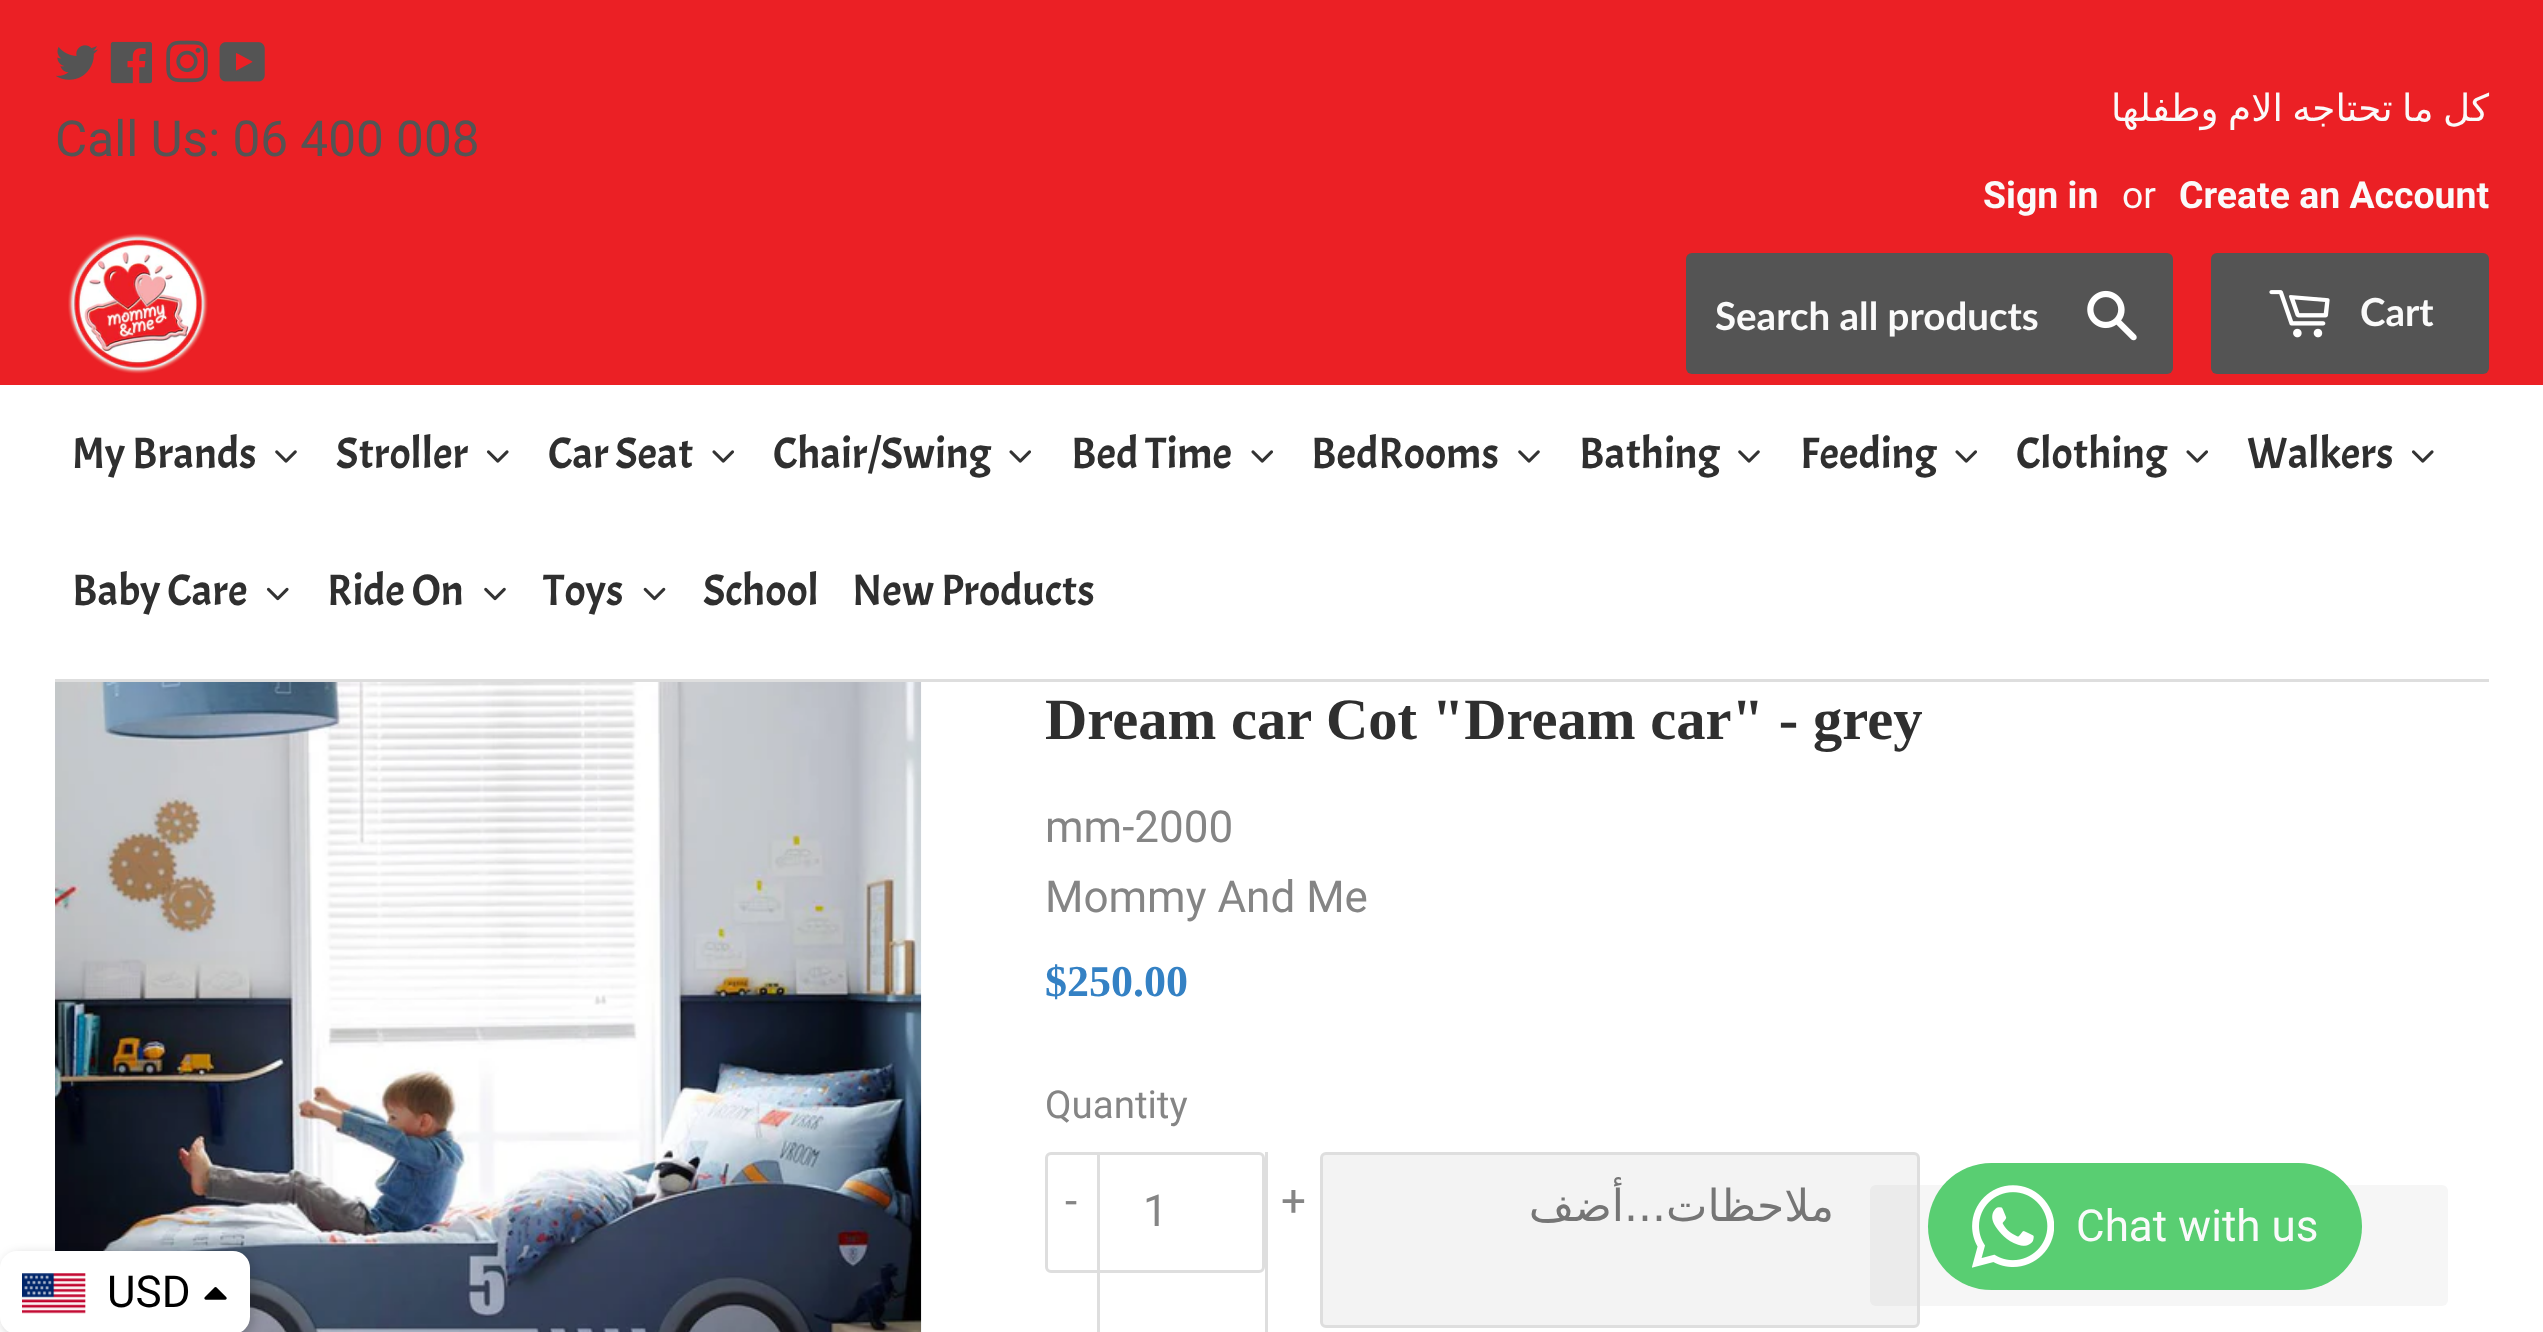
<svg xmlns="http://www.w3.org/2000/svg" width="2543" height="1332">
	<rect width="100%" height="100%" fill="#FFFFFF" />
	<rect x="0" y="0" width="2543" height="385" fill="#EB2025" />
	<image x="56" y="45" width="42" height="35" href="assets/img1.png" />
	<image x="110" y="41" width="42" height="43" href="assets/img2.png" />
	<image x="166" y="40" width="42" height="43" href="assets/img3.png" />
	<image x="219" y="42" width="46" height="40" href="assets/img4.png" />
	<text x="55" y="156" font-family="Roboto" font-size="49.5" fill="#545454">Call Us: 06 400 008</text>
	<image x="68" y="233" width="140" height="141" href="assets/img5.png" />
	<text x="2489" y="121" word-spacing="-2.5" font-family="DejaVu Sans" font-size="37.4" direction="rtl" fill="#FAFAFA">كل ما تحتاجه الام وطفلها</text>
	<text x="1983" y="208" font-family="Roboto" font-size="37.4" font-weight="700" fill="#FAFAFA">Sign in</text>
	<text x="2122" y="208" font-family="Roboto" font-size="37.4" fill="#FAFAFA">or</text>
	<text x="2179" y="208" font-family="Roboto" font-size="37.4" font-weight="700" fill="#FAFAFA">Create an Account</text>
	<rect x="1686" y="253" width="487" height="121" rx="6" fill="#545454" />
	<text x="1715" y="330" font-family="Lato" font-size="38.5" font-weight="700" fill="#FAFAFA">Search all products</text>
	<image x="2087" y="290" width="50" height="51" href="assets/img6.png" />
	<rect x="2211" y="253" width="278" height="121" rx="6" fill="#545454" />
	<image x="2269" y="290" width="61" height="48" href="assets/img7.png" />
	<text x="2360" y="326" font-family="Lato" font-size="38.5" font-weight="700" fill="#FAFAFA">Cart</text>
	<text x="72" y="468" font-family="Acme" font-size="44" fill="#2F2F2F">My Brands</text>
	<image x="275" y="450" width="22" height="13" href="assets/img8.png" />
	<text x="336" y="468" font-family="Acme" font-size="44" fill="#2F2F2F">Stroller</text>
	<image x="486" y="450" width="23" height="13" href="assets/img9.png" />
	<text x="548" y="468" font-family="Acme" font-size="44" fill="#2F2F2F">Car Seat</text>
	<image x="712" y="450" width="22" height="13" href="assets/img10.png" />
	<text x="773" y="468" font-family="Acme" font-size="44" fill="#2F2F2F">Chair/Swing</text>
	<image x="1009" y="450" width="22" height="13" href="assets/img10.png" />
	<text x="1071" y="468" font-family="Acme" font-size="44" fill="#2F2F2F">Bed Time</text>
	<image x="1251" y="450" width="22" height="13" href="assets/img10.png" />
	<text x="1311" y="468" font-family="Acme" font-size="44" fill="#2F2F2F">BedRooms</text>
	<image x="1518" y="450" width="22" height="13" href="assets/img8.png" />
	<text x="1579" y="468" font-family="Acme" font-size="44" fill="#2F2F2F">Bathing</text>
	<image x="1738" y="450" width="22" height="13" href="assets/img8.png" />
	<text x="1800" y="468" font-family="Acme" font-size="44" fill="#2F2F2F">Feeding</text>
	<image x="1955" y="450" width="22" height="13" href="assets/img10.png" />
	<text x="2016" y="468" font-family="Acme" font-size="44" fill="#2F2F2F">Clothing</text>
	<image x="2186" y="450" width="22" height="13" href="assets/img10.png" />
	<text x="2247" y="468" font-family="Acme" font-size="44" fill="#2F2F2F">Walkers</text>
	<image x="2411" y="450" width="23" height="13" href="assets/img9.png" />
	<text x="72" y="605" font-family="Acme" font-size="44" fill="#2F2F2F">Baby Care</text>
	<image x="266" y="587" width="23" height="14" href="assets/img11.png" />
	<text x="327" y="605" font-family="Acme" font-size="44" fill="#2F2F2F">Ride On</text>
	<image x="484" y="587" width="22" height="14" href="assets/img12.png" />
	<text x="543" y="605" font-family="Acme" font-size="44" fill="#2F2F2F">Toys</text>
	<image x="643" y="587" width="23" height="14" href="assets/img13.png" />
	<g font-family="Acme" font-size="44" fill="#2F2F2F">
		<text x="703" y="605">School</text>
		<text x="852" y="605">New Products</text>
	</g>
	<rect x="55" y="679" width="2434" height="3" fill="#DEDEDE" />
	<image x="55" y="682" width="867" height="650" href="assets/img14.png" />
	<text x="1045" y="739" font-family="Liberation Serif" font-size="58.6" font-weight="700" fill="#2F2F2F">Dream car Cot "Dream car" - grey</text>
	<g font-family="Roboto" font-size="44" fill="#858585">
		<text x="1045" y="842">mm-2000</text>
		<text x="1045" y="912">Mommy And Me</text>
	</g>
	<text x="1045" y="996" font-family="Liberation Serif" font-size="44" font-weight="700" fill="#3481C4">$250.00</text>
	<text x="1045" y="1118" font-family="Roboto" font-size="38.5" fill="#858585">Quantity</text>
	<rect x="1046.5" y="1153.5" width="217" height="118" rx="4.5" fill="none" stroke="#DEDEDE" stroke-width="3" />
	<rect x="1097" y="1152" width="3" height="180" fill="#DEDEDE" />
	<g font-family="Roboto" font-size="44" fill="#858585">
		<text x="1065" y="1216">-</text>
		<text x="1143" y="1226">1</text>
	</g>
	<rect x="1265" y="1152" width="3" height="180" fill="#DEDEDE" />
	<text x="1281" y="1216" font-family="Roboto" font-size="44" fill="#858585">+</text>
	<rect x="1870" y="1185" width="578" height="121" rx="6" fill="#F6F6F6" />
	<rect x="1321.5" y="1153.5" width="597" height="173" rx="4.5" fill="#858585" fill-opacity="0.1" stroke="#DEDEDE" stroke-width="3" />
	<g font-family="DejaVu Sans" font-size="44" direction="rtl" fill="#757575">
		<text x="1624" y="1221">أضف</text>
		<text x="1834" y="1221">ملاحظات...</text>
	</g>
	<rect x="1928" y="1163" width="434" height="127" rx="63.5" fill="#59CE72" />
	<image x="1972" y="1185" width="82" height="83" href="assets/img15.png" />
	<text x="2076" y="1241" font-family="Roboto" font-size="44" fill="#FAFAFA">Chat with us</text>
	<rect x="3" y="1254" width="250" height="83" rx="17" fill="#000000" fill-opacity="0.2" filter="blur(5.5px)" />
	<rect x="0" y="1251" width="250" height="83" rx="17" fill="#FFFFFF" />
	<image x="22" y="1273" width="64" height="41" href="assets/img16.png" />
	<text x="107" y="1307" font-family="Roboto" font-size="44" fill="#000000">USD</text>
	<image x="204" y="1287" width="23" height="13" href="assets/img17.png" />
</svg>
